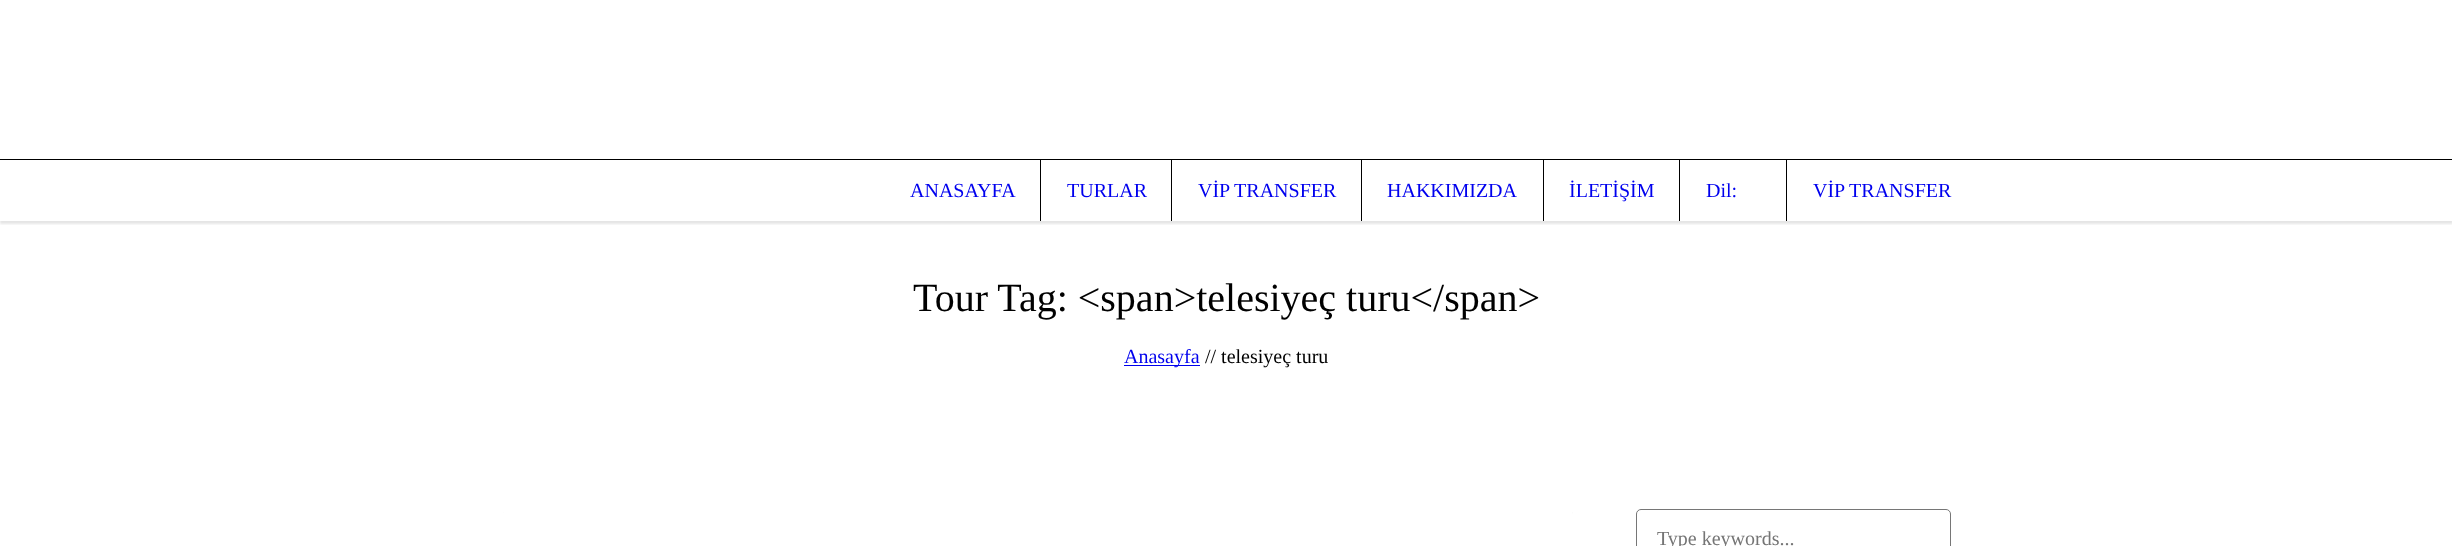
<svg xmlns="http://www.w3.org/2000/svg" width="2452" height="546">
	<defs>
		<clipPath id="clip1"><rect x="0" y="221" width="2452" height="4" /></clipPath>
		<clipPath id="clip2"><path d="M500 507H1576V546H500ZM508 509H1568C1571 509 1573 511 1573 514V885C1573 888 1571 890 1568 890H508C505 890 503 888 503 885V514C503 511 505 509 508 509Z" clip-rule="evenodd" /></clipPath>
	</defs>
	<rect width="100%" height="100%" fill="#FFFFFF" />
	<g clip-path="url(#clip1)">
		<rect x="0" y="3" width="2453" height="221" fill="#000000" fill-opacity="0.1" filter="blur(1px)" />
	</g>
	<rect x="0" y="159" width="2452" height="1" fill="#000000" />
	<rect x="1040" y="160" width="1" height="61" fill="#000000" />
	<text x="910" y="197" font-family="Liberation Serif" font-size="20" fill="#0000EE">ANASAYFA</text>
	<rect x="1171" y="160" width="1" height="61" fill="#000000" />
	<text x="1067" y="197" font-family="Liberation Serif" font-size="20" fill="#0000EE">TURLAR</text>
	<rect x="1361" y="160" width="1" height="61" fill="#000000" />
	<text x="1198" y="197" font-family="Liberation Serif" font-size="20" fill="#0000EE">VİP TRANSFER</text>
	<rect x="1543" y="160" width="1" height="61" fill="#000000" />
	<text x="1387" y="197" font-family="Liberation Serif" font-size="20" fill="#0000EE">HAKKIMIZDA</text>
	<rect x="1679" y="160" width="1" height="61" fill="#000000" />
	<text x="1569" y="197" font-family="Liberation Serif" font-size="20" fill="#0000EE">İLETİŞİM</text>
	<rect x="1786" y="160" width="1" height="61" fill="#000000" />
	<g font-family="Liberation Serif" font-size="20" fill="#0000EE">
		<text x="1706" y="197">Dil:</text>
		<text x="1813" y="197">VİP TRANSFER</text>
	</g>
	<text x="913" y="311" font-family="Liberation Serif" font-size="40" fill="#000000">Tour Tag: &lt;span&gt;telesiyeç turu&lt;/span&gt;</text>
	<rect x="1124" y="365" width="76" height="1" fill="#0000EE" />
	<text x="1124" y="363" font-family="Liberation Serif" font-size="20" fill="#0000EE">Anasayfa</text>
	<text x="1205" y="363" font-family="Liberation Serif" font-size="20" fill="#000000">// telesiyeç turu</text>
	<g clip-path="url(#clip2)">
		<rect x="503" y="510" width="1070" height="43" rx="5" fill="#000000" fill-opacity="0.25" filter="blur(0.5px)" />
	</g>
	<rect x="1636.5" y="509.5" width="314" height="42" rx="4.5" fill="none" stroke="#767676" />
	<text x="1657" y="545" font-family="Liberation Serif" font-size="20" fill="#757575">Type keywords...</text>
</svg>
